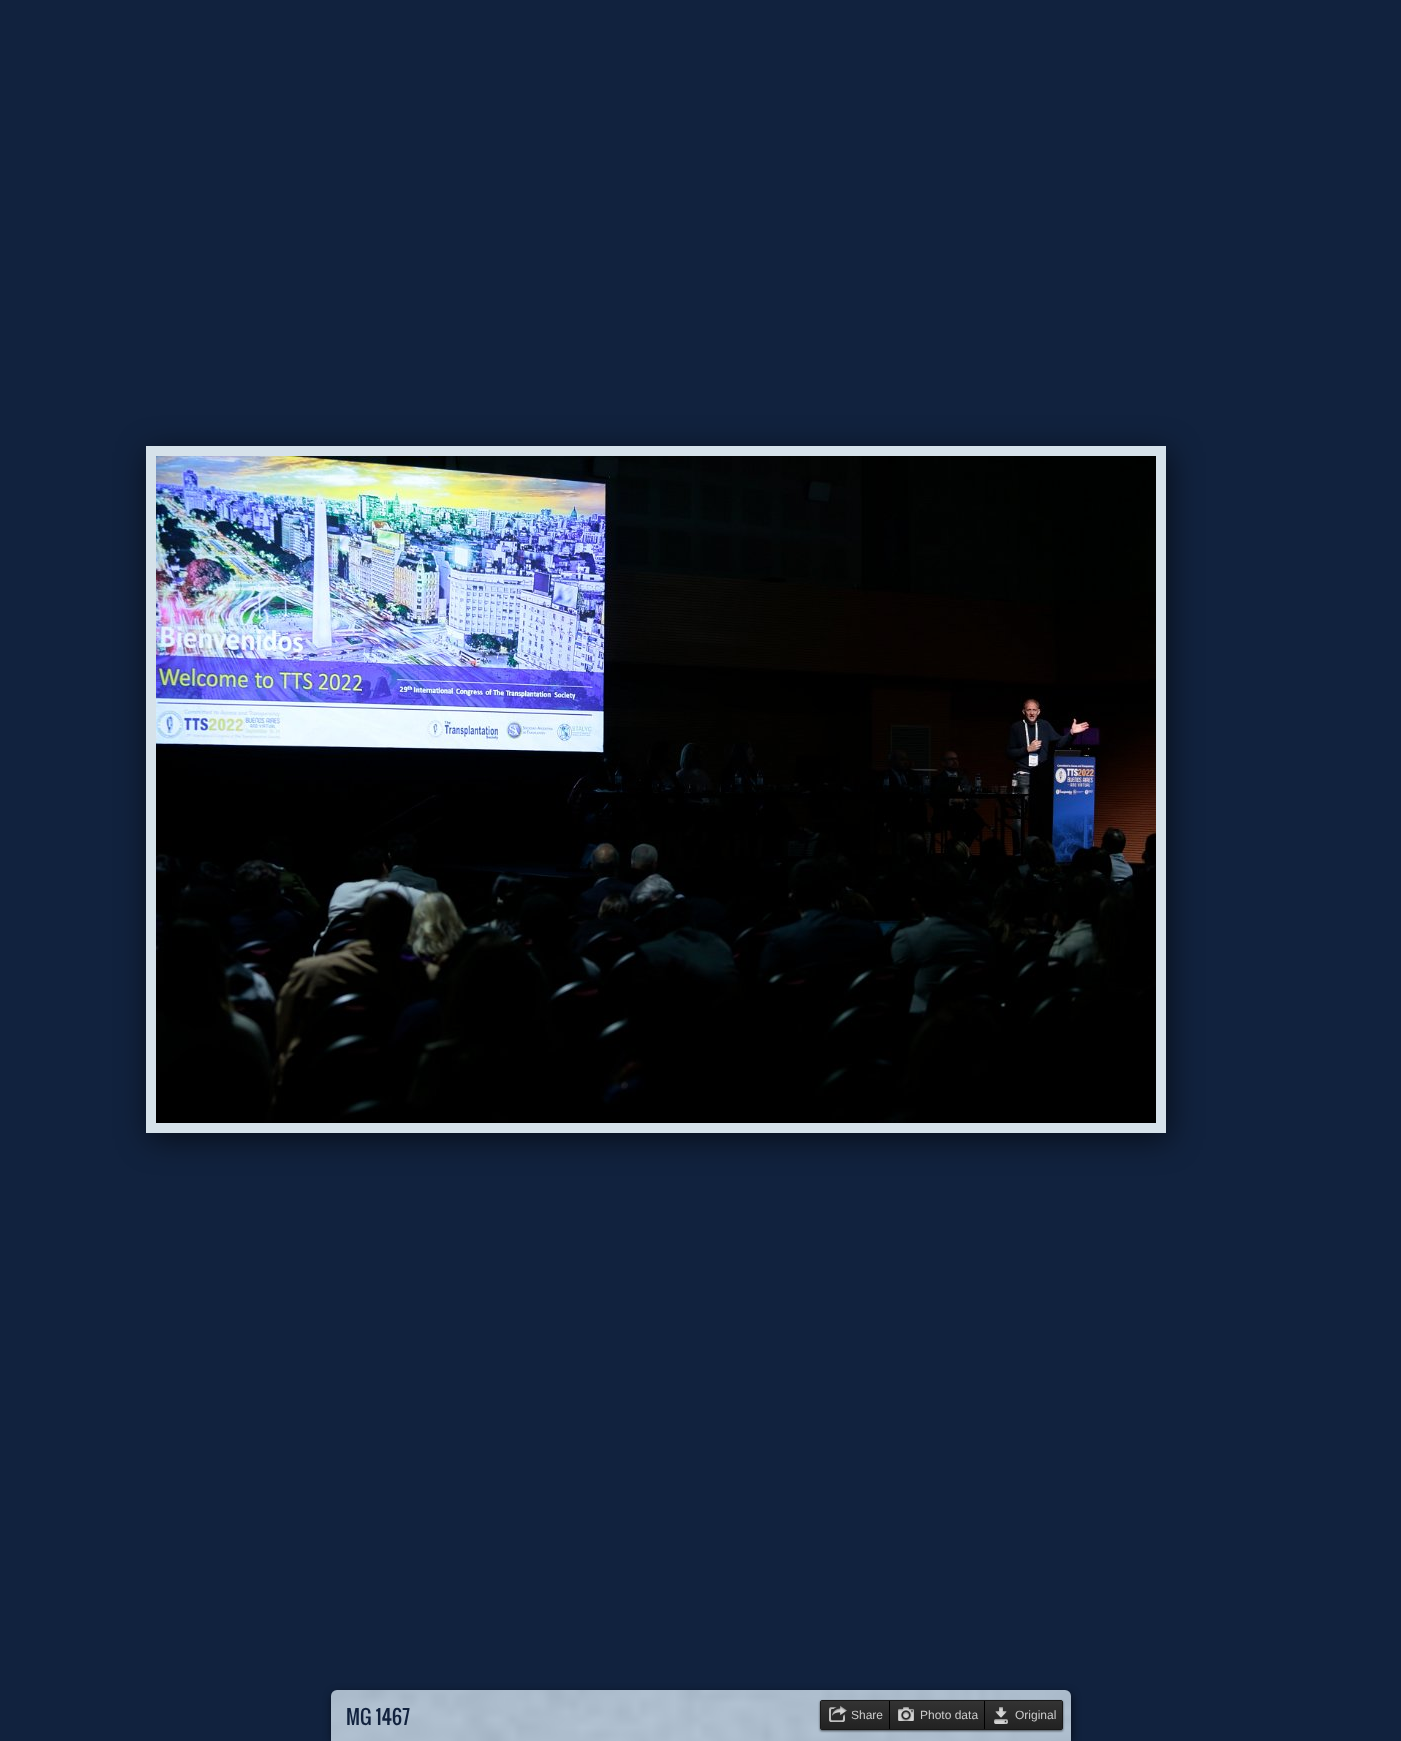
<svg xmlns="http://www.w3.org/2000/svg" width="1401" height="1741">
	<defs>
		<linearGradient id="g1" gradientUnits="userSpaceOnUse" x1="942" y1="1701" x2="942" y2="1729"><stop offset="0" stop-color="#333333" /><stop offset="1" stop-color="#222222" /></linearGradient>
	</defs>
	<rect width="100%" height="100%" fill="#11223E" />
	<rect x="149" y="452" width="1020" height="687" fill="#000000" fill-opacity="0.6" filter="blur(16px)" />
	<rect x="146" y="446" width="1020" height="687" fill="#D6E2EA" />
	<image x="156" y="456" width="1000" height="667" href="assets/img1.png" />
	<rect x="332" y="1693" width="740" height="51" rx="6" fill="#000000" fill-opacity="0.6" filter="blur(4px)" />
	<image x="331" y="1690" width="740" height="51" href="assets/img2.png" />
	<text x="346" y="1725" font-family="Oswald" font-size="19.5" fill="#11223E">MG 1467</text>
	<rect x="820" y="1701" width="243" height="30" rx="2" fill="#000000" fill-opacity="0.6" filter="blur(1px)" />
	<rect x="821" y="1701" width="241" height="28" rx="1" fill="url(#g1)" />
	<rect x="820.5" y="1700.5" width="242" height="29" rx="1.5" fill="none" stroke="#181818" />
	<image x="829" y="1705" width="18" height="17" href="assets/img3.png" />
	<text x="851" y="1719" font-family="Liberation Sans" font-size="12" fill="#CCCCCC">Share</text>
	<image x="898" y="1707" width="16" height="14" href="assets/img4.png" />
	<rect x="889" y="1701" width="1" height="28" fill="#000000" />
	<text x="920" y="1719" font-family="Liberation Sans" font-size="12" fill="#CCCCCC">Photo data</text>
	<image x="994" y="1707" width="14" height="17" href="assets/img5.png" />
	<rect x="984" y="1701" width="1" height="28" fill="#000000" />
	<text x="1015" y="1719" font-family="Liberation Sans" font-size="12" fill="#CCCCCC">Original</text>
</svg>
